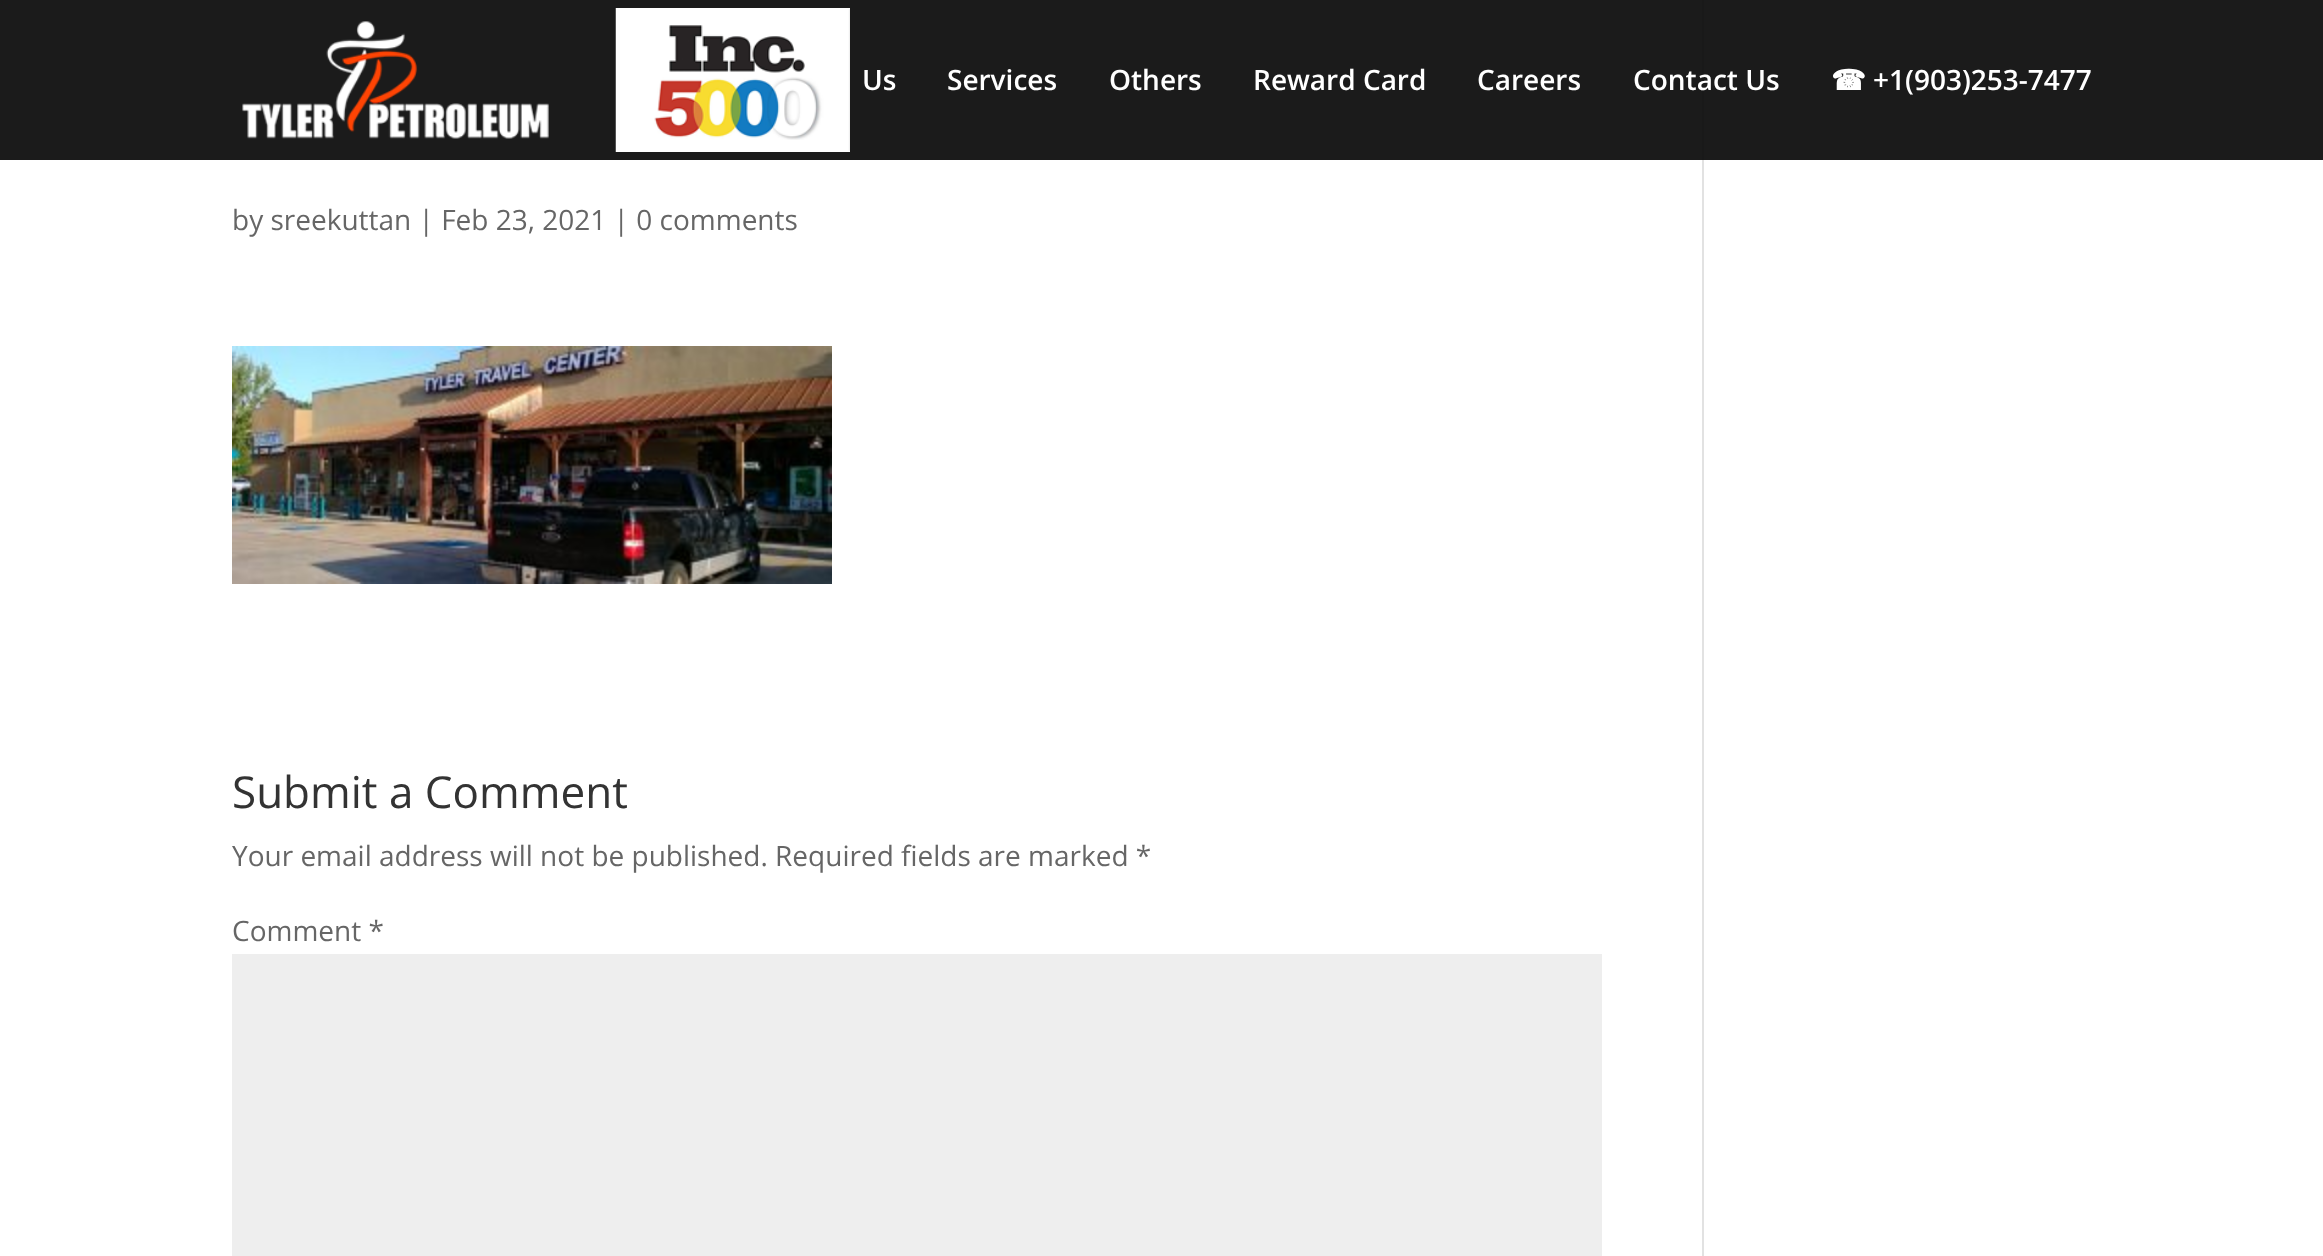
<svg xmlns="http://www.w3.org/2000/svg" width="2323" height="1256">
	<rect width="100%" height="100%" fill="#FFFFFF" />
	<rect x="1702" y="0" width="2" height="1256" fill="#E2E2E2" />
	<rect x="0" y="0" width="2323" height="160" fill="#0A0A0A" fill-opacity="0.93" />
	<image x="242" y="8" width="608" height="144" href="assets/img1.png" />
	<g font-family="Open Sans" font-size="28" font-weight="600" fill="#FFFFFF">
		<text x="862" y="90">Us</text>
		<text x="947" y="90">Services</text>
		<text x="1109" y="90">Others</text>
		<text x="1253" y="90">Reward Card</text>
		<text x="1477" y="90">Careers</text>
		<text x="1633" y="90">Contact Us</text>
	</g>
	<text x="1831" y="90" font-family="DejaVu Sans" font-size="28" font-weight="700" fill="#FFFFFF">☎</text>
	<text x="1873" y="90" font-family="Open Sans" font-size="28" font-weight="600" fill="#FFFFFF">+1(903)253-7477</text>
	<text x="232" y="230" font-family="Open Sans" font-size="28" fill="#666666">by sreekuttan | Feb 23, 2021 | 0 comments</text>
	<image x="232" y="346" width="600" height="238" href="assets/img2.png" />
	<text x="232" y="808" font-family="Open Sans" font-size="44" fill="#333333">Submit a Comment</text>
	<g font-family="Open Sans" font-size="28" fill="#666666">
		<text x="232" y="866">Your email address will not be published. Required fields are marked *</text>
		<text x="232" y="941">Comment *</text>
	</g>
	<rect x="232" y="954" width="1370" height="302" fill="#EEEEEE" />
</svg>
